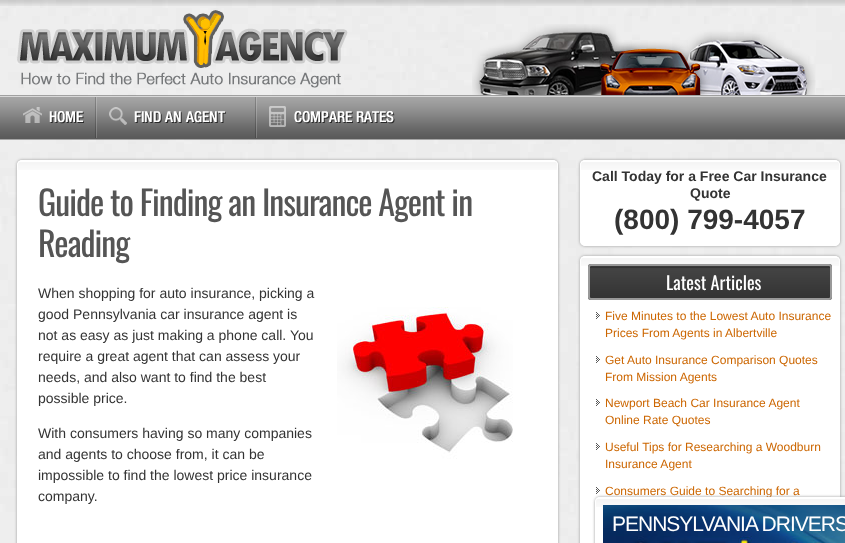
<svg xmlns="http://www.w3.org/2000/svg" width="845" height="543">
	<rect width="100%" height="100%" fill="#FFFFFF" />
	<image x="0" y="0" width="845" height="543" href="assets/img1.png" />
	<image x="0" y="0" width="845" height="6" href="assets/img2.png" />
	<image x="472" y="24" width="343" height="71" href="assets/img3.png" />
	<image x="17" y="10" width="331" height="78" href="assets/img4.png" />
	<image x="0" y="95" width="845" height="45" href="assets/img5.png" />
	<image x="23" y="107" width="61" height="17" href="assets/img6.png" />
	<image x="95" y="97" width="131" height="41" href="assets/img7.png" />
	<image x="255" y="97" width="140" height="41" href="assets/img8.png" />
	<rect x="17" y="160" width="541" height="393" rx="5" fill="#999999" filter="blur(1.5px)" />
	<rect x="17" y="160" width="541" height="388" rx="5" fill="#FFFFFF" />
	<image x="17" y="161" width="541" height="9" href="assets/img9.png" />
	<rect x="17.5" y="160.5" width="540" height="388" rx="4.5" fill="none" stroke="#FFFFFF" />
	<g font-family="Oswald" font-size="34" letter-spacing="-1" fill="#555555">
		<text x="38" y="216">Guide to Finding an Insurance Agent in</text>
		<text x="38" y="257">Reading</text>
	</g>
	<g font-family="Liberation Sans" font-size="14" fill="#333333">
		<text x="38" y="298">When shopping for auto insurance, picking a</text>
		<text x="38" y="319">good Pennsylvania car insurance agent is</text>
		<text x="38" y="340">not as easy as just making a phone call. You</text>
		<text x="38" y="361">require a great agent that can assess your</text>
		<text x="38" y="382">needs, and also want to find the best</text>
		<text x="38" y="403">possible price.</text>
	</g>
	<image x="337" y="307" width="176" height="152" href="assets/img10.png" />
	<g font-family="Liberation Sans" font-size="14" fill="#333333">
		<text x="38" y="438">With consumers having so many companies</text>
		<text x="38" y="459">and agents to choose from, it can be</text>
		<text x="38" y="480">impossible to find the lowest price insurance</text>
		<text x="38" y="501">company.</text>
	</g>
	<rect x="580" y="160" width="260" height="86" rx="5" fill="#999999" filter="blur(1.5px)" />
	<rect x="580" y="160" width="260" height="86" rx="5" fill="#FFFFFF" />
	<image x="580" y="161" width="260" height="9" href="assets/img11.png" />
	<rect x="580.5" y="160.5" width="259" height="85" rx="4.5" fill="none" stroke="#FFFFFF" />
	<g font-family="Liberation Sans" font-size="14" font-weight="700" fill="#333333">
		<text x="592" y="181">Call Today for a Free Car Insurance</text>
		<text x="690" y="198">Quote</text>
	</g>
	<text x="614" y="229" font-family="Liberation Sans" font-size="28" font-weight="700" fill="#333333">(800) 799-4057</text>
	<rect x="580" y="256" width="260" height="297" rx="5" fill="#999999" filter="blur(1.5px)" />
	<rect x="580" y="256" width="260" height="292" rx="5" fill="#FFFFFF" />
	<image x="580" y="257" width="260" height="9" href="assets/img12.png" />
	<rect x="580.5" y="256.5" width="259" height="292" rx="4.5" fill="none" stroke="#FFFFFF" />
	<rect x="588" y="264" width="244" height="36" rx="3" fill="#444444" />
	<image x="588" y="266" width="244" height="34" href="assets/img13.png" />
	<rect x="589" y="265" width="242" height="34" rx="2" fill="none" stroke="#999999" stroke-width="2" />
	<text x="666" y="290" font-family="Oswald" font-size="18.25" fill="#FFFFFF">Latest Articles</text>
	<image x="596" y="312" width="4" height="7" href="assets/img14.png" />
	<g font-family="Liberation Sans" font-size="12" fill="#CC6600">
		<text x="605" y="320">Five Minutes to the Lowest Auto Insurance</text>
		<text x="605" y="337">Prices From Agents in Albertville</text>
	</g>
	<image x="596" y="356" width="4" height="7" href="assets/img14.png" />
	<g font-family="Liberation Sans" font-size="12" fill="#CC6600">
		<text x="605" y="364">Get Auto Insurance Comparison Quotes</text>
		<text x="605" y="381">From Mission Agents</text>
	</g>
	<image x="596" y="399" width="4" height="7" href="assets/img14.png" />
	<g font-family="Liberation Sans" font-size="12" fill="#CC6600">
		<text x="605" y="407">Newport Beach Car Insurance Agent</text>
		<text x="605" y="424">Online Rate Quotes</text>
	</g>
	<image x="596" y="443" width="4" height="7" href="assets/img14.png" />
	<g font-family="Liberation Sans" font-size="12" fill="#CC6600">
		<text x="605" y="451">Useful Tips for Researching a Woodburn</text>
		<text x="605" y="468">Insurance Agent</text>
	</g>
	<image x="596" y="487" width="4" height="7" href="assets/img14.png" />
	<text x="605" y="495" font-family="Liberation Sans" font-size="12" fill="#CC6600">Consumers Guide to Searching for a</text>
	<rect x="595" y="497" width="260" height="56" rx="5" fill="#999999" filter="blur(1.5px)" />
	<path d="M600 497H845V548H600C597 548 595 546 595 543V502C595 499 597 497 600 497Z" fill="#FFFFFF" />
	<image x="595" y="498" width="250" height="9" href="assets/img15.png" />
	<rect x="595.5" y="497.5" width="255" height="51" rx="4.5" fill="none" stroke="#FFFFFF" />
	<image x="603" y="505" width="242" height="38" href="assets/img16.png" />
	<text x="612" y="531" font-family="Liberation Sans" font-size="21" letter-spacing="-1" fill="#FFFFFF">PENNSYLVANIA DRIVERS</text>
</svg>
